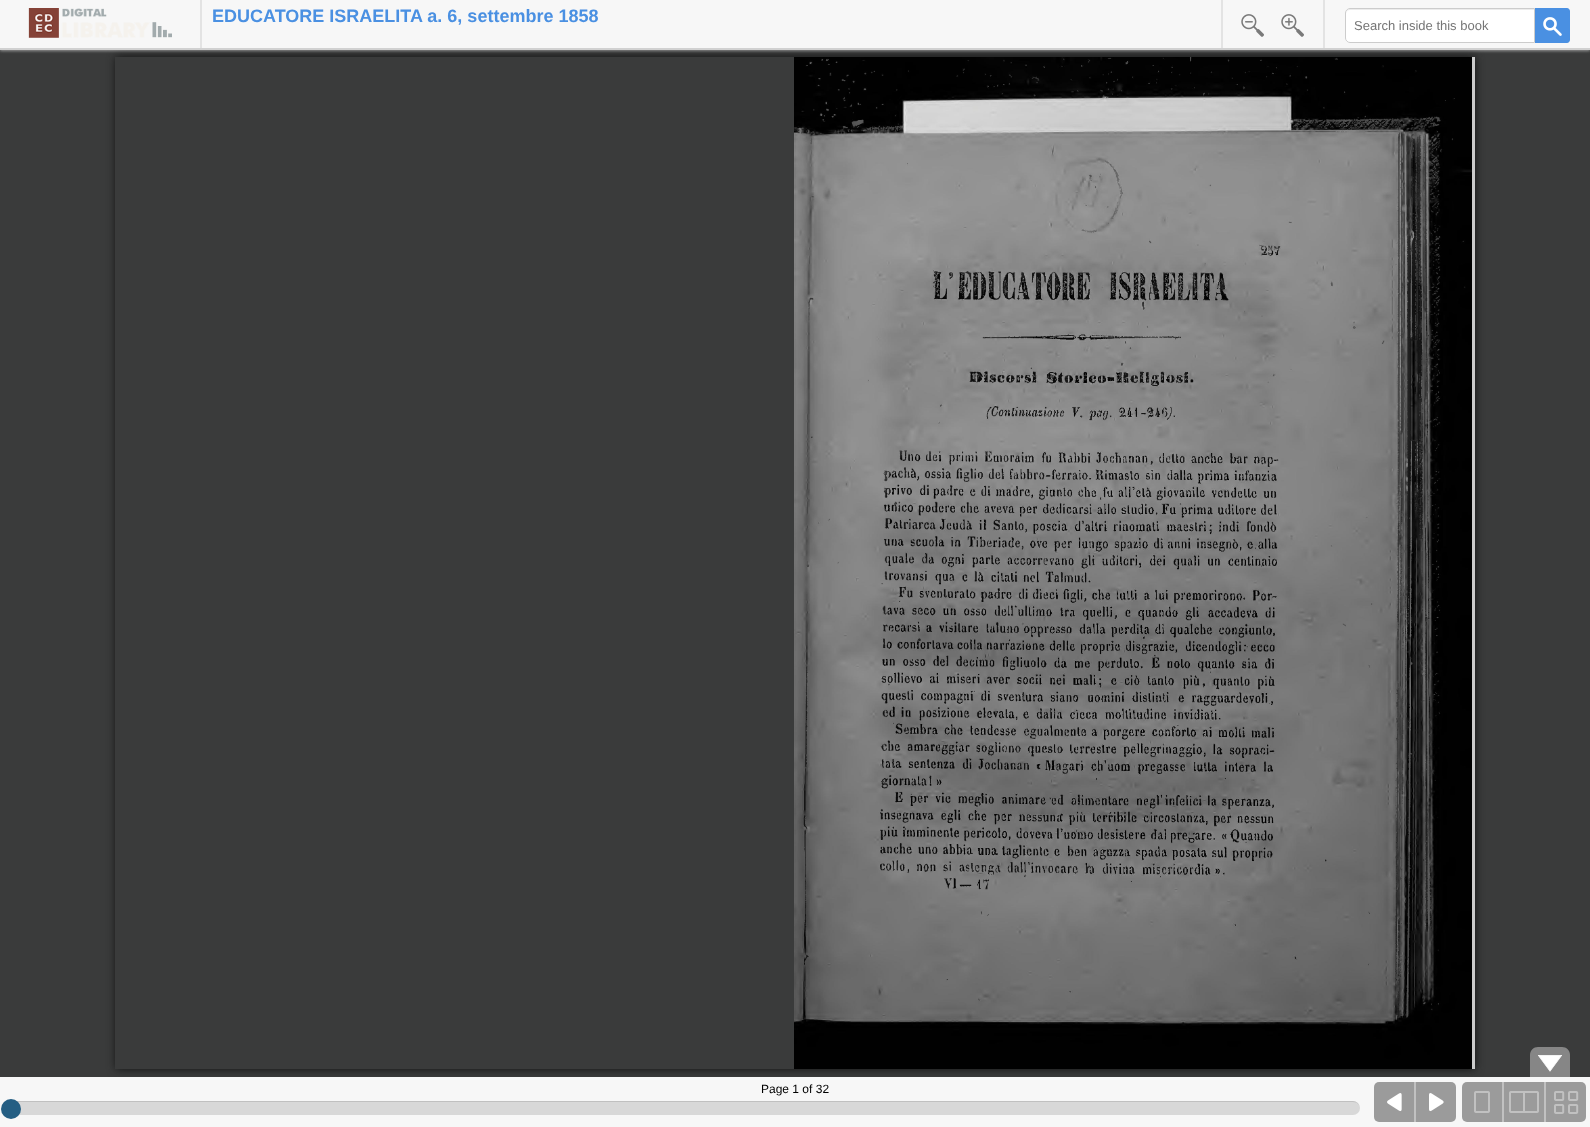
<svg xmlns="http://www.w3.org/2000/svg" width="1590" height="1127">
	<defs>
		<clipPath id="clip1"><path d="M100 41H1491V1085H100ZM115 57H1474V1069H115Z" clip-rule="evenodd" /></clipPath>
	</defs>
	<rect width="100%" height="100%" fill="#3A3B3B" />
	<rect x="0" y="1" width="1590" height="50" fill="#999999" filter="blur(1.5px)" />
	<g clip-path="url(#clip1)">
		<rect x="116" y="57" width="1359" height="1012" fill="#111111" filter="blur(5px)" />
	</g>
	<rect x="0" y="0" width="1590" height="48" fill="#F7F7F7" />
	<rect x="0" y="48" width="1590" height="2" fill="#D1D1D1" />
	<rect x="200" y="0" width="2" height="48" fill="#E3E3E3" />
	<image x="28" y="8" width="144" height="30" href="assets/img1.png" />
	<text x="212" y="22" font-family="Liberation Sans" font-size="18" font-weight="700" fill="#4A90E2">EDUCATORE ISRAELITA a. 6, settembre 1858</text>
	<rect x="1221" y="0" width="2" height="48" fill="#E3E3E3" />
	<rect x="1323" y="0" width="2" height="48" fill="#E3E3E3" />
	<image x="1241" y="14" width="23" height="23" href="assets/img2.png" />
	<image x="1281" y="14" width="23" height="23" href="assets/img3.png" />
	<path d="M1350 8H1535V43H1350C1347 43 1345 41 1345 38V13C1345 10 1347 8 1350 8Z" fill="#FFFFFF" />
	<path d="M1350 10H1534V9H1349C1347 10 1346 12 1346 14C1346 12 1348 10 1350 10Z" fill="#ECECEC" />
	<path d="M1350 8.5H1534.5V42.5H1350C1347.5 42.5 1345.5 40.5 1345.5 38V13C1345.5 10.5 1347.5 8.5 1350 8.5Z" fill="none" stroke="#CCCCCC" />
	<text x="1354" y="30" font-family="Liberation Sans" font-size="13" fill="#757575">Search inside this book</text>
	<path d="M1535 8H1567C1568.5 8 1570 9.5 1570 11V40C1570 41.5 1568.5 43 1567 43H1535Z" fill="#4A90E2" />
	<image x="1543" y="17" width="19" height="19" href="assets/img4.png" />
	<image x="794" y="57" width="678" height="1012" href="assets/img5.png" />
	<rect x="1472" y="57" width="3" height="1012" fill="#CCCCCC" />
	<rect x="794" y="133" width="2" height="888" fill="#000000" fill-opacity="0.03" />
	<rect x="0" y="1077" width="1590" height="50" fill="#F7F7F7" />
	<path d="M1538 1047H1562C1566.5 1047 1570 1050.5 1570 1055V1077H1530V1055C1530 1050.5 1533.5 1047 1538 1047Z" fill="#868686" />
	<image x="1538" y="1055" width="24" height="17" href="assets/img6.png" />
	<text x="761" y="1093" font-family="Liberation Sans" font-size="12" fill="#000000">Page 1 of 32</text>
	<image x="1374" y="1082" width="40" height="40" href="assets/img7.png" />
	<rect x="1414" y="1082" width="2" height="40" fill="#C1C1C1" />
	<image x="1416" y="1082" width="40" height="40" href="assets/img8.png" />
	<image x="1462" y="1082" width="40" height="40" href="assets/img9.png" />
	<rect x="1502" y="1082" width="2" height="40" fill="#C1C1C1" />
	<image x="1504" y="1082" width="40" height="40" href="assets/img10.png" />
	<image x="1546" y="1082" width="40" height="40" href="assets/img11.png" />
	<rect x="1544" y="1082" width="2" height="40" fill="#C1C1C1" />
	<rect x="10" y="1101" width="1350" height="14" rx="7" fill="#D8D8D8" />
	<path d="M17 1102H1353C1357 1102 1360 1105 1360 1108C1360 1105 1357 1101 1353 1101H17C14 1101 11 1103 10 1107V1108C10 1105 13 1102 17 1102Z" fill="#9B9A9B" fill-opacity="0.39" />
	<circle cx="11" cy="1109" r="10" fill="#245E83" />
</svg>
